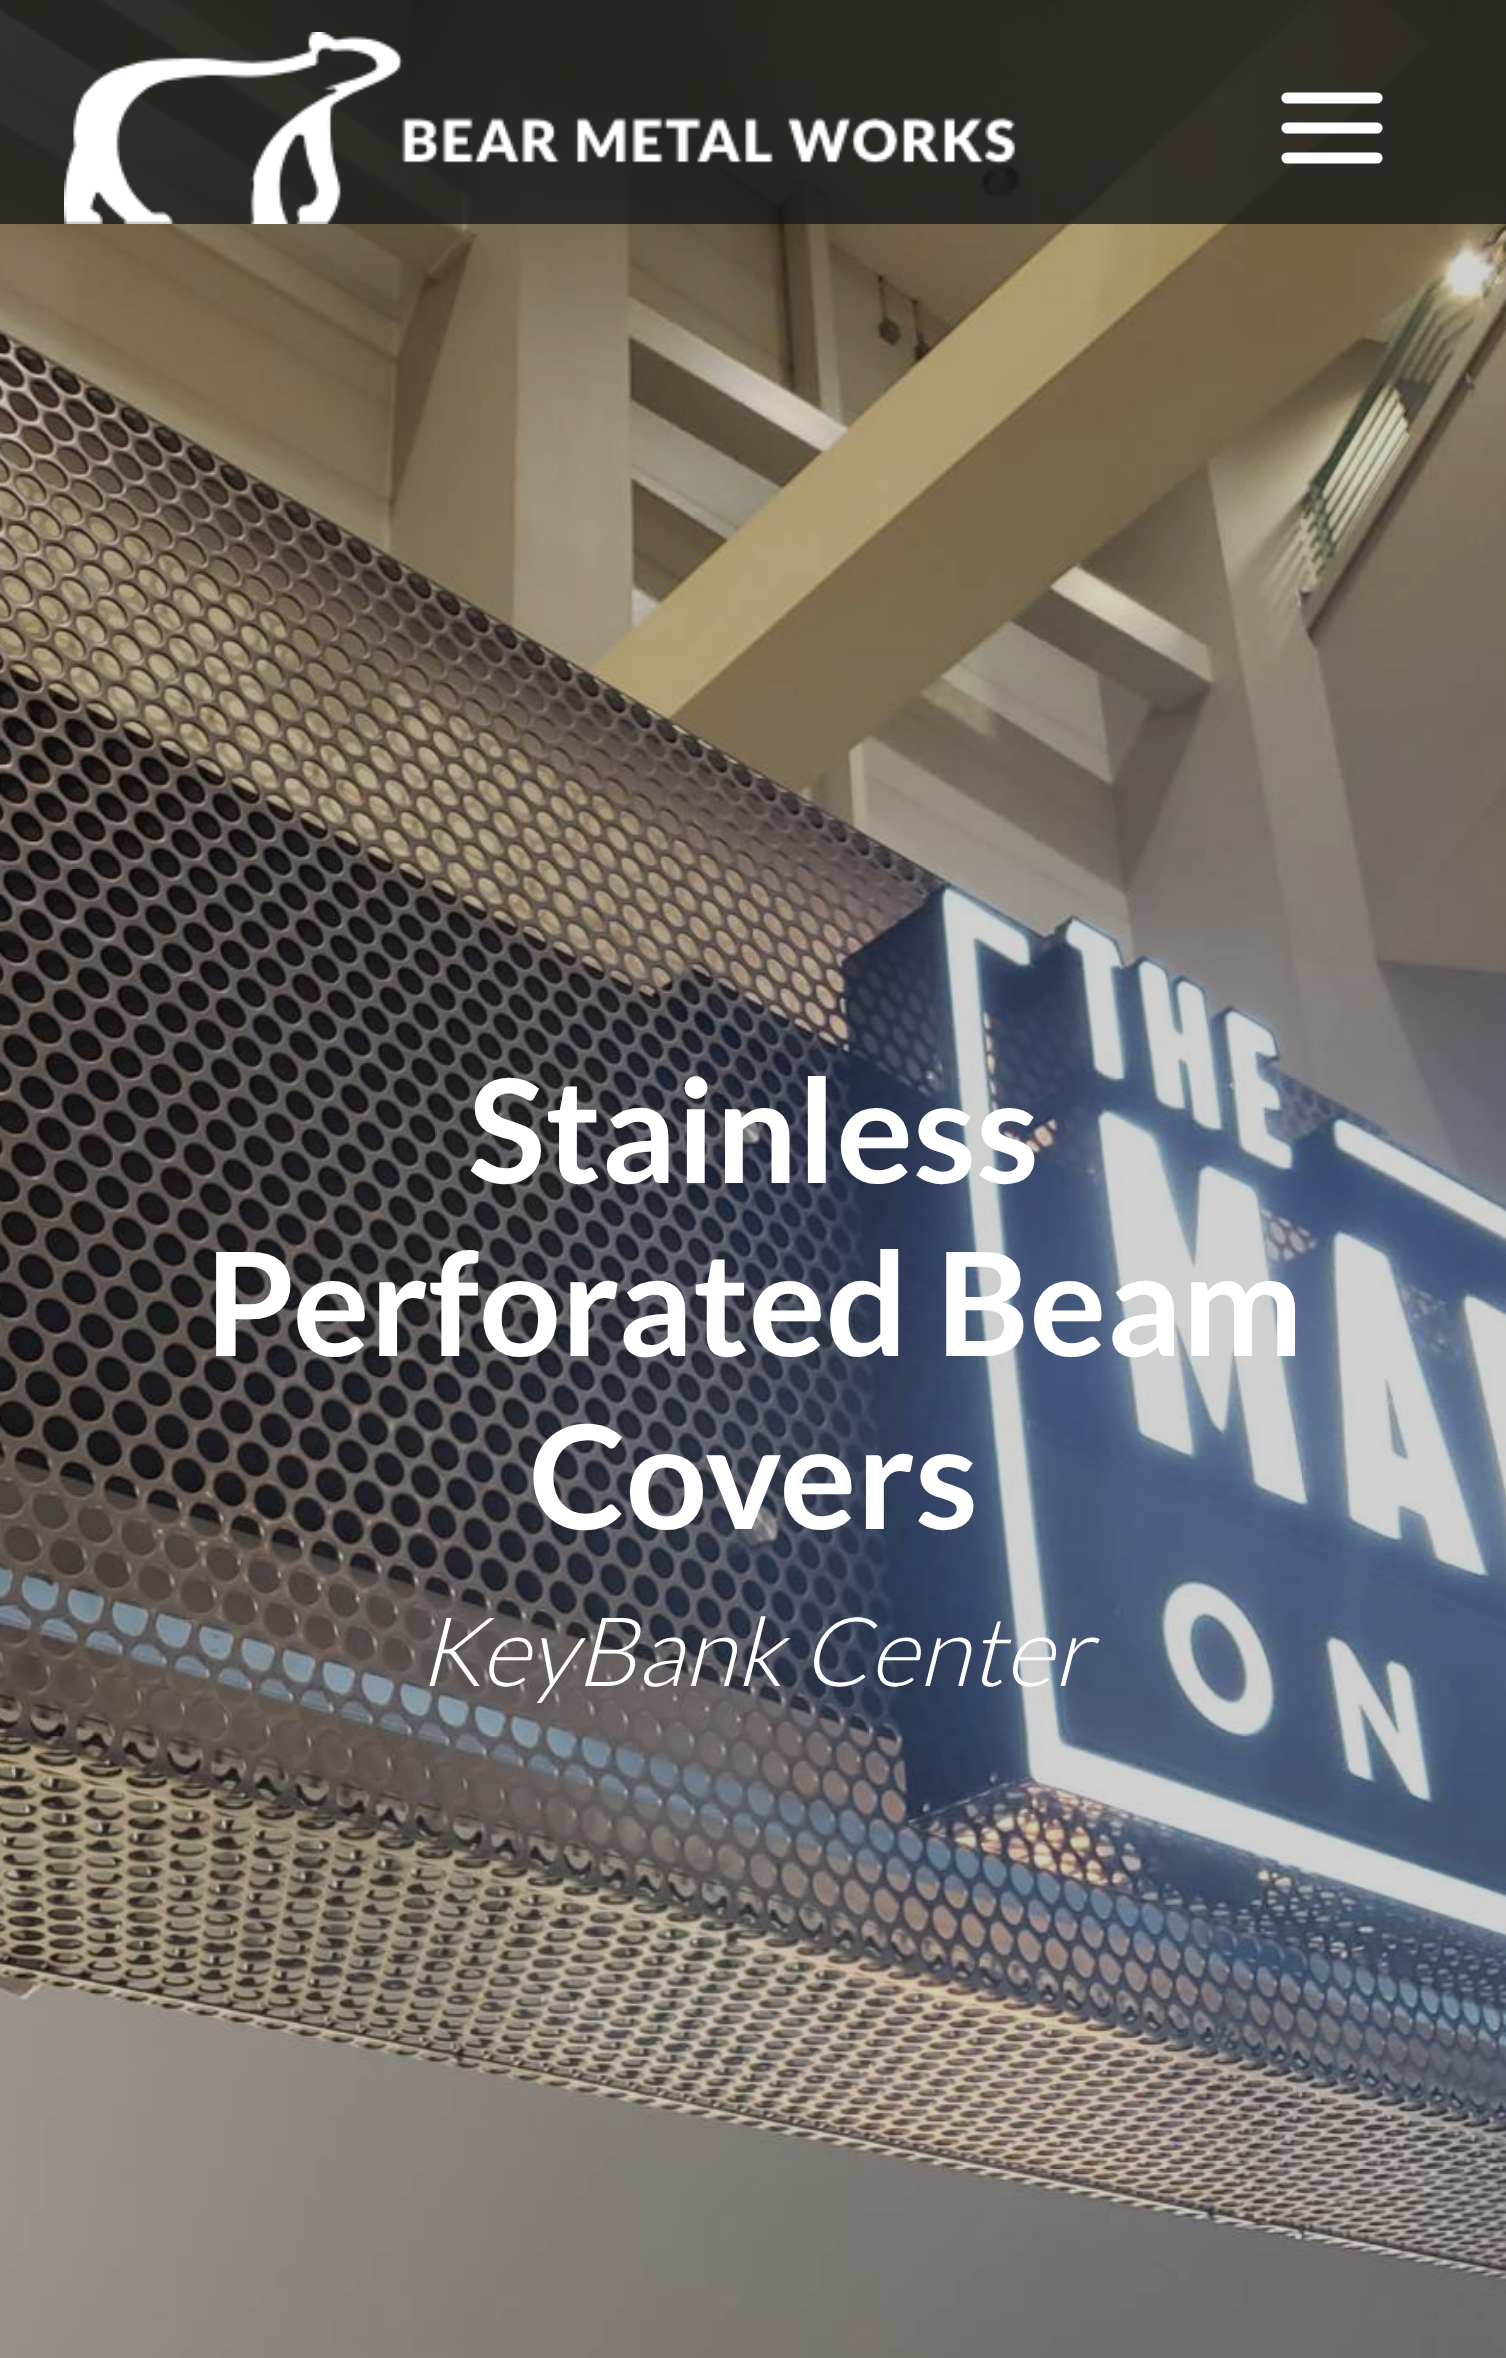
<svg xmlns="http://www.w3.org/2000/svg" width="1506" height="2358">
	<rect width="100%" height="100%" fill="#FFFFFF" />
	<image x="0" y="0" width="1506" height="2358" href="assets/img2.png" />
	<rect x="0" y="0" width="1506" height="224" fill="#191A1B" fill-opacity="0.8" />
	<image x="64" y="32" width="952" height="192" href="assets/img1.png" />
	<path d="M1287 98H1377M1287 128H1377M1287 158H1377" fill="none" stroke="#FFFFFF" stroke-width="11.2" stroke-linecap="round" />
	<g font-family="Lato" font-size="144" font-weight="700" fill="#FFFFFF">
		<text x="468" y="1183">Stainless</text>
		<text x="205" y="1356">Perforated Beam</text>
		<text x="529" y="1529">Covers</text>
	</g>
	<text x="418" y="1686" font-family="Lato" font-size="96" font-weight="300" font-style="italic" fill="#FFFFFF">KeyBank Center</text>
</svg>
